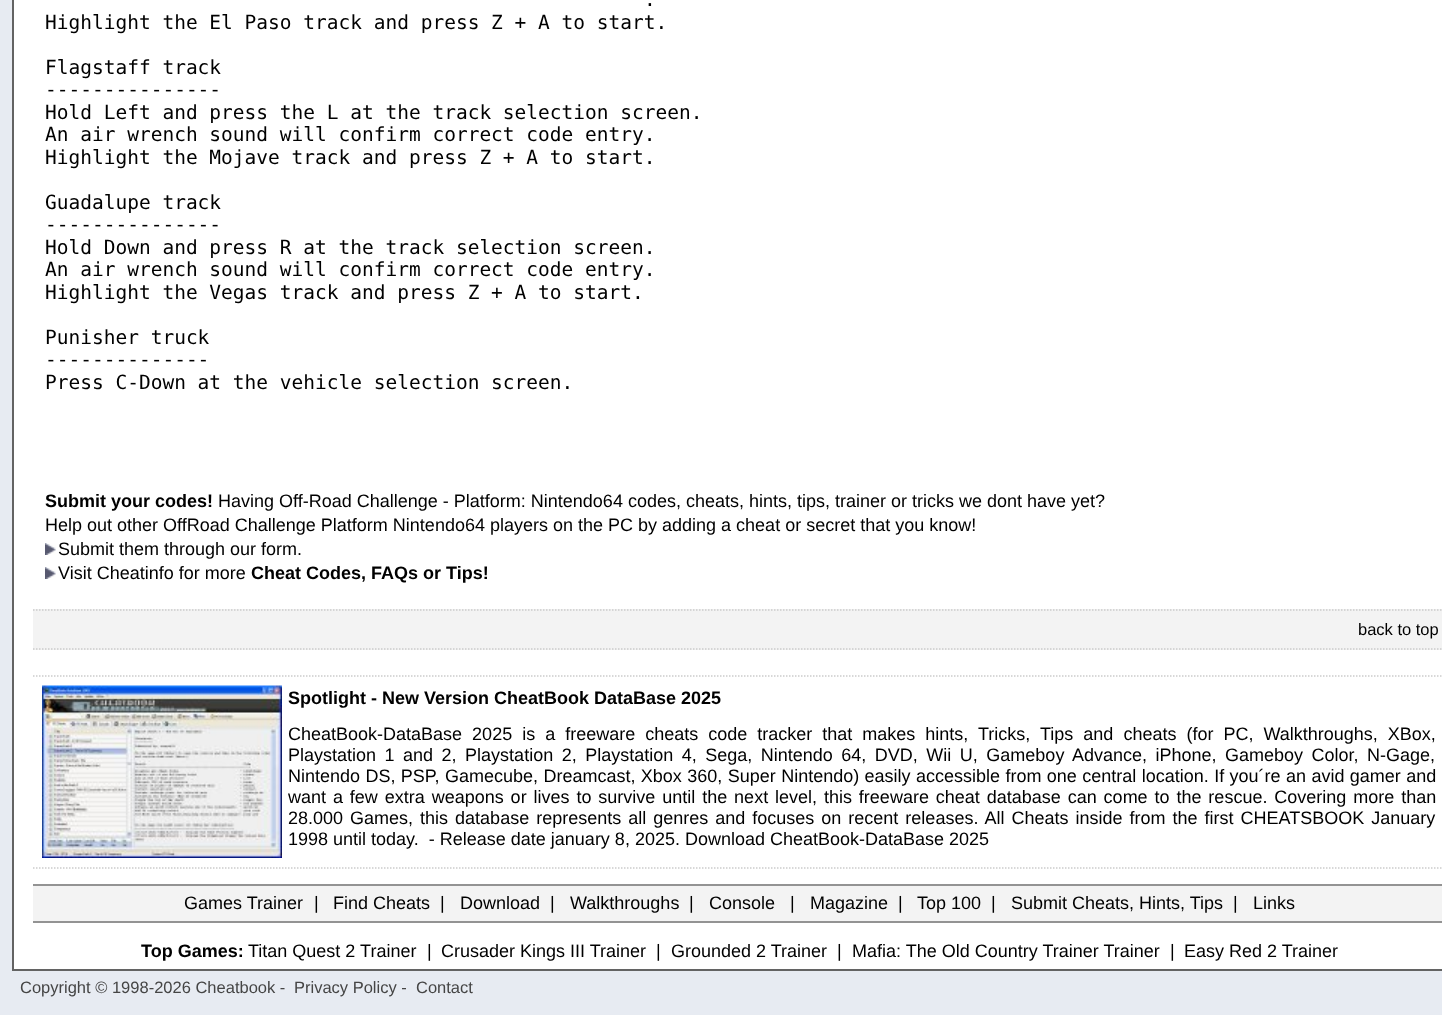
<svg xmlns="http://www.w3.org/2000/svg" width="1442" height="1015">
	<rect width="100%" height="100%" fill="#E7EBF2" />
	<rect x="13" y="-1" width="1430" height="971" fill="#FFFFFF" stroke="#636363" stroke-width="2" />
	<g font-family="DejaVu Sans Mono" font-size="19.5" fill="#000000">
		<text x="644" y="6">.</text>
		<text x="45" y="29">Highlight the El Paso track and press Z + A to start.</text>
		<text x="45" y="74">Flagstaff track</text>
		<text x="45" y="96">---------------</text>
		<text x="45" y="119">Hold Left and press the L at the track selection screen.</text>
		<text x="45" y="141">An air wrench sound will confirm correct code entry.</text>
		<text x="45" y="164">Highlight the Mojave track and press Z + A to start.</text>
		<text x="45" y="209">Guadalupe track</text>
		<text x="45" y="231">---------------</text>
		<text x="45" y="254">Hold Down and press R at the track selection screen.</text>
		<text x="45" y="276">An air wrench sound will confirm correct code entry.</text>
		<text x="45" y="299">Highlight the Vegas track and press Z + A to start.</text>
		<text x="45" y="344">Punisher truck</text>
		<text x="45" y="366">--------------</text>
		<text x="45" y="389">Press C-Down at the vehicle selection screen.</text>
	</g>
	<text x="45" y="507" font-family="Liberation Sans" font-size="18" font-weight="700" fill="#000000">Submit your codes!</text>
	<g font-family="Liberation Sans" font-size="18" fill="#000000">
		<text x="218" y="507">Having Off-Road Challenge - Platform: Nintendo64 codes, cheats, hints, tips, trainer or tricks we dont have yet?</text>
		<text x="45" y="531">Help out other OffRoad Challenge Platform Nintendo64 players on the PC by adding a cheat or secret that you know!</text>
	</g>
	<image x="45" y="543" width="11" height="12" href="assets/img1.png" />
	<text x="58" y="555" font-family="Liberation Sans" font-size="18" fill="#000000">Submit them through our form.</text>
	<image x="45" y="567" width="11" height="12" href="assets/img1.png" />
	<text x="58" y="579" font-family="Liberation Sans" font-size="18" fill="#000000">Visit Cheatinfo for more</text>
	<text x="251" y="579" font-family="Liberation Sans" font-size="18" font-weight="700" fill="#000000">Cheat Codes, FAQs or Tips!</text>
	<rect x="33" y="609" width="1409" height="41" fill="#F3F3F3" />
	<path d="M33 610H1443" fill="none" stroke="#CCCCCC" stroke-width="1.5" stroke-dasharray="1.5 1.5" />
	<path d="M33 649H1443" fill="none" stroke="#CCCCCC" stroke-width="1.5" stroke-dasharray="1.5 1.5" />
	<text x="1358" y="635" font-family="Liberation Sans" font-size="16.5" fill="#000000">back to top</text>
	<path d="M33 676H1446" fill="none" stroke="#CCCCCC" stroke-width="1.5" stroke-dasharray="1.5 1.5" />
	<path d="M33 868H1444.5" fill="none" stroke="#CCCCCC" stroke-width="1.5" stroke-dasharray="1.5 1.5" />
	<image x="42" y="685" width="240" height="173" href="assets/img2.png" />
	<text x="288" y="704" font-family="Liberation Sans" font-size="18" font-weight="700" fill="#000000">Spotlight - New Version CheatBook DataBase 2025</text>
	<g font-family="Liberation Sans" font-size="18" fill="#000000">
		<text x="288" y="740" word-spacing="5">CheatBook-DataBase 2025 is a freeware cheats code tracker that makes hints, Tricks, Tips and cheats (for PC, Walkthroughs, XBox,</text>
		<text x="288" y="761" word-spacing="3.5">Playstation 1 and 2, Playstation 2, Playstation 4, Sega, Nintendo 64, DVD, Wii U, Gameboy Advance, iPhone, Gameboy Color, N-Gage,</text>
		<text x="288" y="782" word-spacing="0.4">Nintendo DS, PSP, Gamecube, Dreamcast, Xbox 360, Super Nintendo) easily accessible from one central location. If you´re an avid gamer and</text>
		<text x="288" y="803" word-spacing="1.9">want a few extra weapons or lives to survive until the next level, this freeware cheat database can come to the rescue. Covering more than</text>
		<text x="288" y="824" word-spacing="2">28.000 Games, this database represents all genres and focuses on recent releases. All Cheats inside from the first CHEATSBOOK January</text>
		<text x="288" y="845" xml:space="preserve">1998 until today.  - Release date january 8, 2025. Download CheatBook-DataBase 2025</text>
	</g>
	<rect x="33" y="886" width="1409" height="35" fill="#F3F3F3" />
	<rect x="33" y="884" width="1409" height="2" fill="#939393" />
	<rect x="33" y="921" width="1409" height="2" fill="#939393" />
	<g font-family="Liberation Sans" font-size="18" fill="#000000">
		<text x="184" y="909">Games Trainer</text>
		<text x="314" y="909">|</text>
		<text x="333" y="909">Find Cheats</text>
		<text x="440" y="909">|</text>
		<text x="460" y="909">Download</text>
		<text x="550" y="909">|</text>
		<text x="570" y="909">Walkthroughs</text>
		<text x="689" y="909">|</text>
		<text x="709" y="909">Console</text>
		<text x="790" y="909">|</text>
		<text x="810" y="909">Magazine</text>
		<text x="898" y="909">|</text>
		<text x="917" y="909">Top 100</text>
		<text x="991" y="909">|</text>
		<text x="1011" y="909">Submit Cheats, Hints, Tips</text>
		<text x="1233" y="909">|</text>
		<text x="1253" y="909">Links</text>
	</g>
	<text x="141" y="957" font-family="Liberation Sans" font-size="18" font-weight="700" fill="#000000">Top Games:</text>
	<g font-family="Liberation Sans" font-size="18" fill="#000000">
		<text x="248" y="957">Titan Quest 2 Trainer</text>
		<text x="427" y="957">|</text>
		<text x="441" y="957">Crusader Kings III Trainer</text>
		<text x="656" y="957">|</text>
		<text x="671" y="957">Grounded 2 Trainer</text>
		<text x="837" y="957">|</text>
		<text x="852" y="957">Mafia: The Old Country Trainer Trainer</text>
		<text x="1170" y="957">|</text>
		<text x="1184" y="957">Easy Red 2 Trainer</text>
	</g>
	<g font-family="Liberation Sans" font-size="16.5" fill="#454545">
		<text x="20" y="993">Copyright © 1998-2026 Cheatbook -</text>
		<text x="294" y="993">Privacy Policy -</text>
		<text x="416" y="993">Contact</text>
	</g>
</svg>
